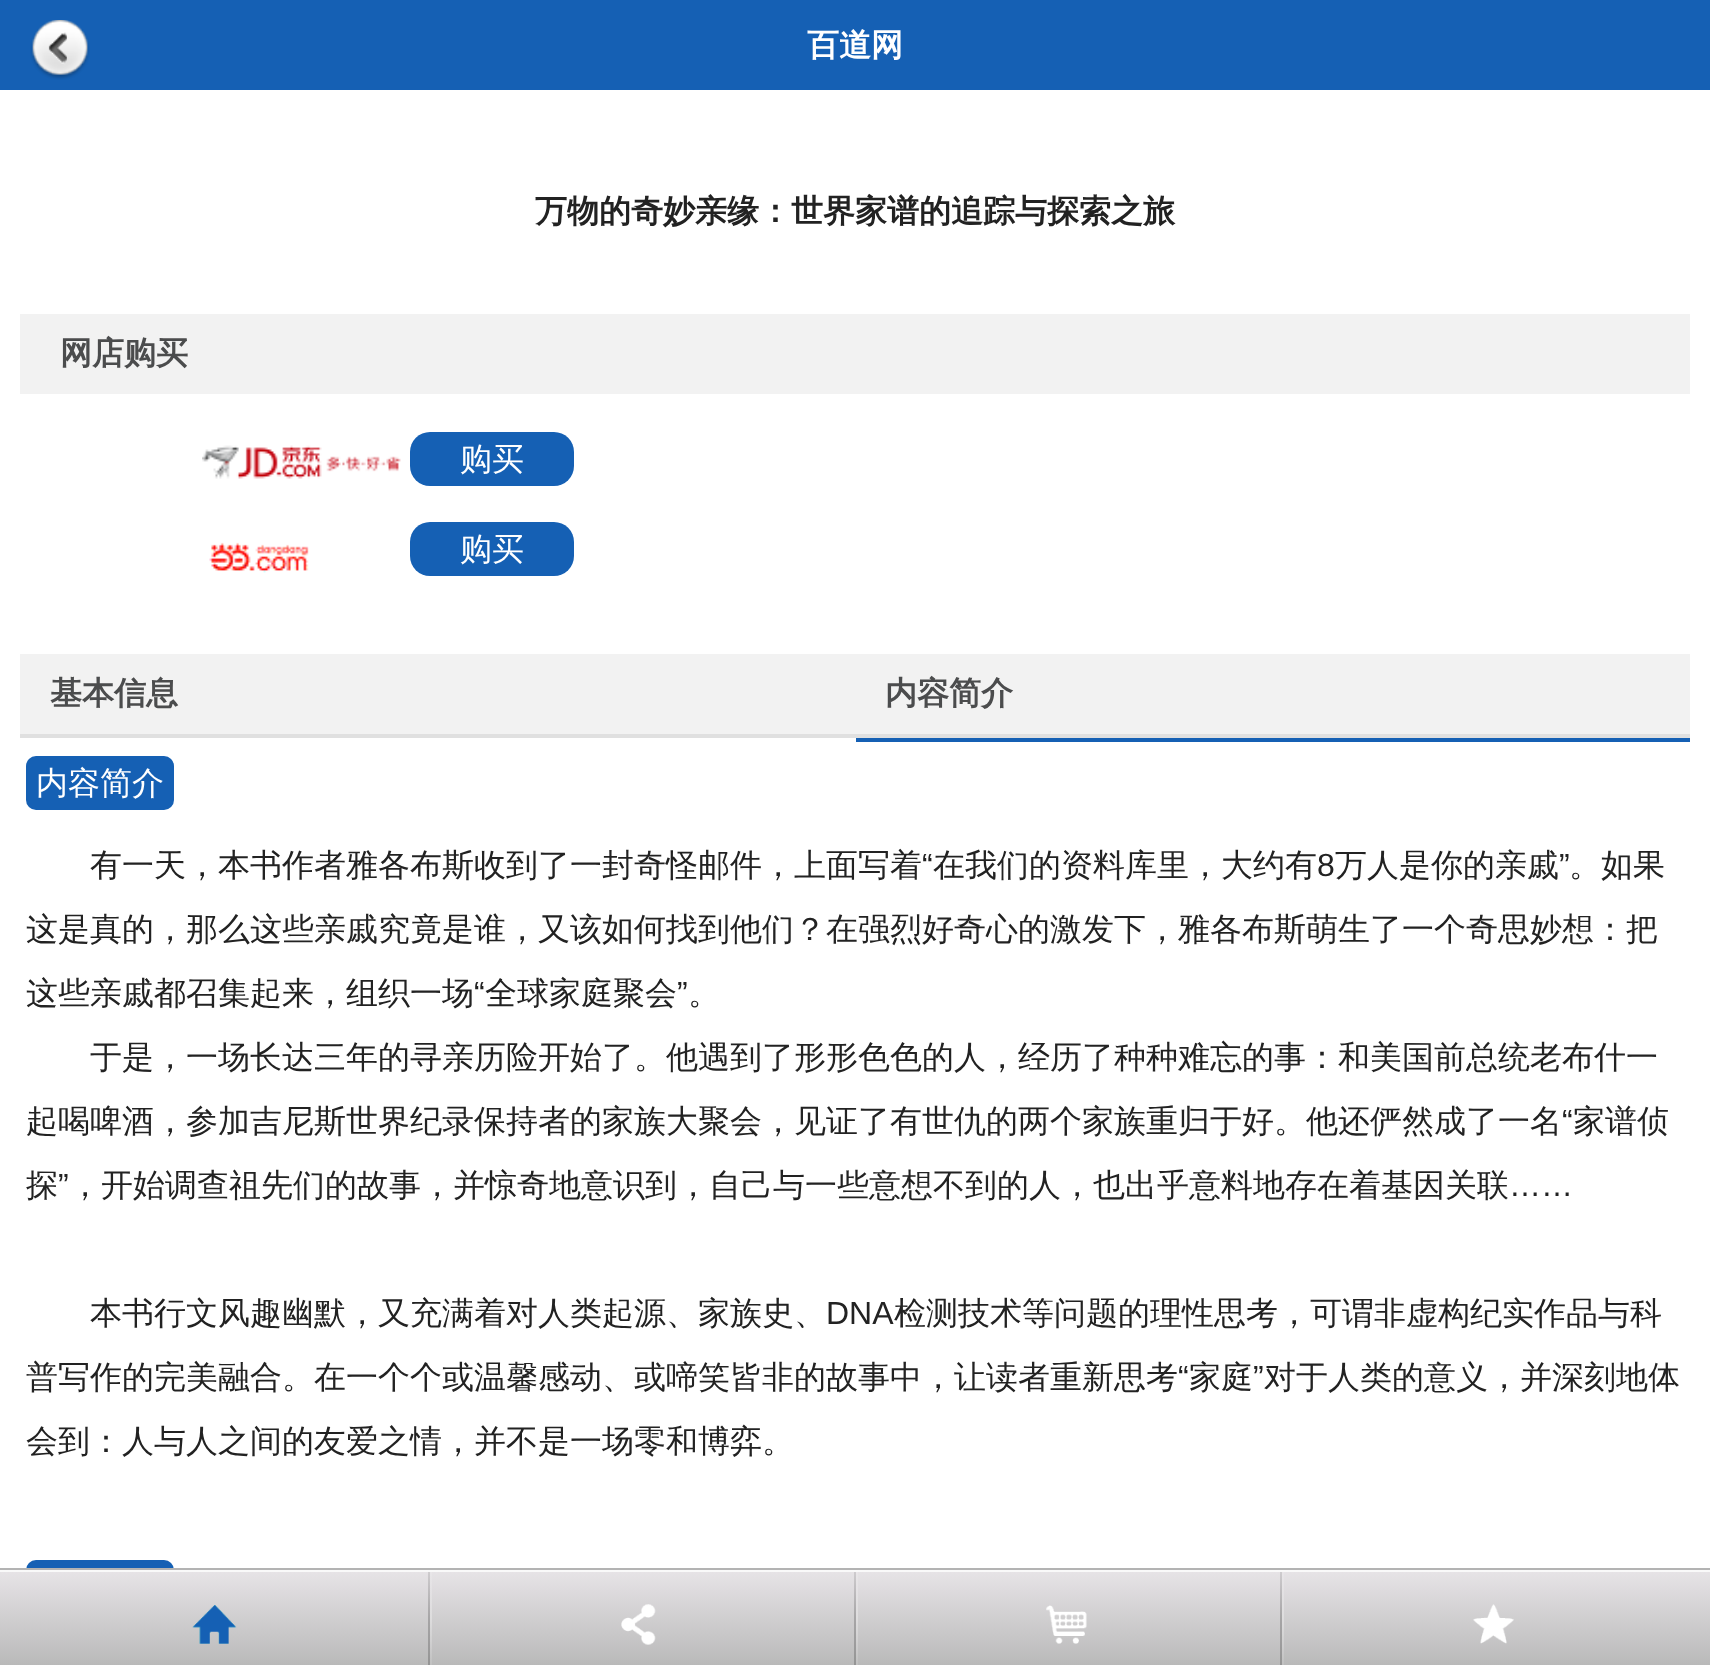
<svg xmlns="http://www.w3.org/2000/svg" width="1710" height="1665">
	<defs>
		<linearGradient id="g1" gradientUnits="userSpaceOnUse" x1="0" y1="1570" x2="0" y2="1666"><stop offset="0" stop-color="#E7E4E7" /><stop offset="1" stop-color="#B9B9B9" /></linearGradient>
		<linearGradient id="g2" gradientUnits="userSpaceOnUse" x1="430" y1="1570" x2="430" y2="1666"><stop offset="0" stop-color="#FFFFFF" stop-opacity="0.1" /><stop offset="0.5" stop-color="#FFFFFF" stop-opacity="0.3" /><stop offset="1" stop-color="#FFFFFF" stop-opacity="0.1" /></linearGradient>
		<linearGradient id="g3" gradientUnits="userSpaceOnUse" x1="428" y1="1570" x2="428" y2="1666"><stop offset="0" stop-color="#000000" stop-opacity="0.1" /><stop offset="0.5" stop-color="#000000" stop-opacity="0.2" /><stop offset="1" stop-color="#000000" stop-opacity="0.2" /></linearGradient>
		<linearGradient id="g4" gradientUnits="userSpaceOnUse" x1="856" y1="1570" x2="856" y2="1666"><stop offset="0" stop-color="#FFFFFF" stop-opacity="0.1" /><stop offset="0.5" stop-color="#FFFFFF" stop-opacity="0.3" /><stop offset="1" stop-color="#FFFFFF" stop-opacity="0.1" /></linearGradient>
		<linearGradient id="g5" gradientUnits="userSpaceOnUse" x1="854" y1="1570" x2="854" y2="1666"><stop offset="0" stop-color="#000000" stop-opacity="0.1" /><stop offset="0.5" stop-color="#000000" stop-opacity="0.2" /><stop offset="1" stop-color="#000000" stop-opacity="0.2" /></linearGradient>
		<linearGradient id="g6" gradientUnits="userSpaceOnUse" x1="1282" y1="1570" x2="1282" y2="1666"><stop offset="0" stop-color="#FFFFFF" stop-opacity="0.1" /><stop offset="0.5" stop-color="#FFFFFF" stop-opacity="0.3" /><stop offset="1" stop-color="#FFFFFF" stop-opacity="0.1" /></linearGradient>
		<linearGradient id="g7" gradientUnits="userSpaceOnUse" x1="1280" y1="1570" x2="1280" y2="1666"><stop offset="0" stop-color="#000000" stop-opacity="0.1" /><stop offset="0.5" stop-color="#000000" stop-opacity="0.2" /><stop offset="1" stop-color="#000000" stop-opacity="0.2" /></linearGradient>
	</defs>
	<rect width="100%" height="100%" fill="#1560B4" />
	<image x="30" y="20" width="60" height="60" href="assets/img1.png" />
	<text x="807" y="56" font-family="WenQuanYi Zen Hei" font-size="32" font-weight="700" fill="#FFFFFF">百道网</text>
	<rect x="0" y="90" width="1710" height="1478" fill="#FFFFFF" />
	<text x="535" y="222" font-family="WenQuanYi Zen Hei" font-size="32" font-weight="700" fill="#222222">万物的奇妙亲缘：世界家谱的追踪与探索之旅</text>
	<rect x="20" y="314" width="1670" height="80" fill="#F2F2F2" />
	<text x="60" y="364" font-family="WenQuanYi Zen Hei" font-size="32" font-weight="700" fill="#4B4C4D">网店购买</text>
	<image x="202" y="445" width="199" height="34" href="assets/img2.png" />
	<rect x="410" y="432" width="164" height="54" rx="20" fill="#1560B4" />
	<text x="460" y="470" font-family="WenQuanYi Zen Hei" font-size="32" font-weight="500" fill="#FFFFFF">购买</text>
	<image x="209" y="542" width="100" height="31" href="assets/img3.png" />
	<rect x="410" y="522" width="164" height="54" rx="20" fill="#1560B4" />
	<text x="460" y="560" font-family="WenQuanYi Zen Hei" font-size="32" font-weight="500" fill="#FFFFFF">购买</text>
	<rect x="20" y="654" width="1670" height="80" fill="#F2F2F2" />
	<rect x="20" y="734" width="1670" height="4" fill="#E0E0E0" />
	<text x="50" y="704" font-family="WenQuanYi Zen Hei" font-size="32" font-weight="700" fill="#4B4C4D">基本信息</text>
	<rect x="856" y="738" width="834" height="4" fill="#1560B4" />
	<text x="885" y="704" font-family="WenQuanYi Zen Hei" font-size="32" font-weight="700" fill="#4B4C4D">内容简介</text>
	<rect x="26" y="756" width="148" height="54" rx="10" fill="#1560B4" />
	<text x="36" y="794" font-family="WenQuanYi Zen Hei" font-size="32" font-weight="500" fill="#FFFFFF">内容简介</text>
	<text x="90" y="876" font-family="WenQuanYi Zen Hei" font-size="32" font-weight="500" fill="#222222">有一天，本书作者雅各布斯收到了一封奇怪邮件，上面写着</text>
	<text x="922" y="876" font-family="Liberation Sans" font-size="32" fill="#222222">“</text>
	<text x="933" y="876" font-family="WenQuanYi Zen Hei" font-size="32" font-weight="500" fill="#222222">在我们的资料库里，大约有</text>
	<text x="1317" y="876" font-family="Liberation Sans" font-size="32" fill="#222222">8</text>
	<text x="1335" y="876" font-family="WenQuanYi Zen Hei" font-size="32" font-weight="500" fill="#222222">万人是你的亲戚</text>
	<text x="1559" y="876" font-family="Liberation Sans" font-size="32" fill="#222222">”</text>
	<g font-family="WenQuanYi Zen Hei" font-size="32" font-weight="500" fill="#222222">
		<text x="1569" y="876">。如果</text>
		<text x="26" y="940">这是真的，那么这些亲戚究竟是谁，又该如何找到他们？在强烈好奇心的激发下，雅各布斯萌生了一个奇思妙想：把</text>
		<text x="26" y="1004">这些亲戚都召集起来，组织一场</text>
	</g>
	<text x="474" y="1004" font-family="Liberation Sans" font-size="32" fill="#222222">“</text>
	<text x="485" y="1004" font-family="WenQuanYi Zen Hei" font-size="32" font-weight="500" fill="#222222">全球家庭聚会</text>
	<text x="677" y="1004" font-family="Liberation Sans" font-size="32" fill="#222222">”</text>
	<g font-family="WenQuanYi Zen Hei" font-size="32" font-weight="500" fill="#222222">
		<text x="688" y="1004">。</text>
		<text x="90" y="1068">于是，一场长达三年的寻亲历险开始了。他遇到了形形色色的人，经历了种种难忘的事：和美国前总统老布什一</text>
		<text x="26" y="1132">起喝啤酒，参加吉尼斯世界纪录保持者的家族大聚会，见证了有世仇的两个家族重归于好。他还俨然成了一名</text>
	</g>
	<text x="1562" y="1132" font-family="Liberation Sans" font-size="32" fill="#222222">“</text>
	<g font-family="WenQuanYi Zen Hei" font-size="32" font-weight="500" fill="#222222">
		<text x="1573" y="1132">家谱侦</text>
		<text x="26" y="1196">探</text>
	</g>
	<text x="58" y="1196" font-family="Liberation Sans" font-size="32" fill="#222222">”</text>
	<text x="69" y="1196" font-family="WenQuanYi Zen Hei" font-size="32" font-weight="500" fill="#222222">，开始调查祖先们的故事，并惊奇地意识到，自己与一些意想不到的人，也出乎意料地存在着基因关联</text>
	<text x="1509" y="1196" font-family="Liberation Sans" font-size="32" fill="#222222">……</text>
	<text x="90" y="1324" font-family="WenQuanYi Zen Hei" font-size="32" font-weight="500" fill="#222222">本书行文风趣幽默，又充满着对人类起源、家族史、</text>
	<text x="826" y="1324" font-family="Liberation Sans" font-size="32" fill="#222222">DNA</text>
	<g font-family="WenQuanYi Zen Hei" font-size="32" font-weight="500" fill="#222222">
		<text x="894" y="1324">检测技术等问题的理性思考，可谓非虚构纪实作品与科</text>
		<text x="26" y="1388">普写作的完美融合。在一个个或温馨感动、或啼笑皆非的故事中，让读者重新思考</text>
	</g>
	<text x="1178" y="1388" font-family="Liberation Sans" font-size="32" fill="#222222">“</text>
	<text x="1189" y="1388" font-family="WenQuanYi Zen Hei" font-size="32" font-weight="500" fill="#222222">家庭</text>
	<text x="1253" y="1388" font-family="Liberation Sans" font-size="32" fill="#222222">”</text>
	<g font-family="WenQuanYi Zen Hei" font-size="32" font-weight="500" fill="#222222">
		<text x="1264" y="1388">对于人类的意义，并深刻地体</text>
		<text x="26" y="1452">会到：人与人之间的友爱之情，并不是一场零和博弈。</text>
	</g>
	<rect x="26" y="1560" width="148" height="54" rx="10" fill="#1560B4" />
	<rect x="0" y="1572" width="1710" height="93" fill="url(#g1)" />
	<rect x="0" y="1568" width="1710" height="2" fill="#B3B3B3" />
	<rect x="0" y="1570" width="426" height="2" fill="#F9F9F9" />
	<image x="192" y="1605" width="45" height="39" href="assets/img4.png" />
	<rect x="430" y="1570" width="2" height="95" fill="url(#g2)" />
	<rect x="428" y="1570" width="2" height="95" fill="url(#g3)" />
	<rect x="426" y="1570" width="426" height="2" fill="#F9F9F9" />
	<image x="621" y="1604" width="35" height="41" href="assets/img5.png" />
	<rect x="856" y="1570" width="2" height="95" fill="url(#g4)" />
	<rect x="854" y="1570" width="2" height="95" fill="url(#g5)" />
	<rect x="852" y="1570" width="426" height="2" fill="#F9F9F9" />
	<image x="1046" y="1605" width="41" height="39" href="assets/img6.png" />
	<rect x="1282" y="1570" width="2" height="95" fill="url(#g6)" />
	<rect x="1280" y="1570" width="2" height="95" fill="url(#g7)" />
	<rect x="1278" y="1570" width="432" height="2" fill="#F9F9F9" />
	<image x="1473" y="1604" width="41" height="40" href="assets/img7.png" />
</svg>
